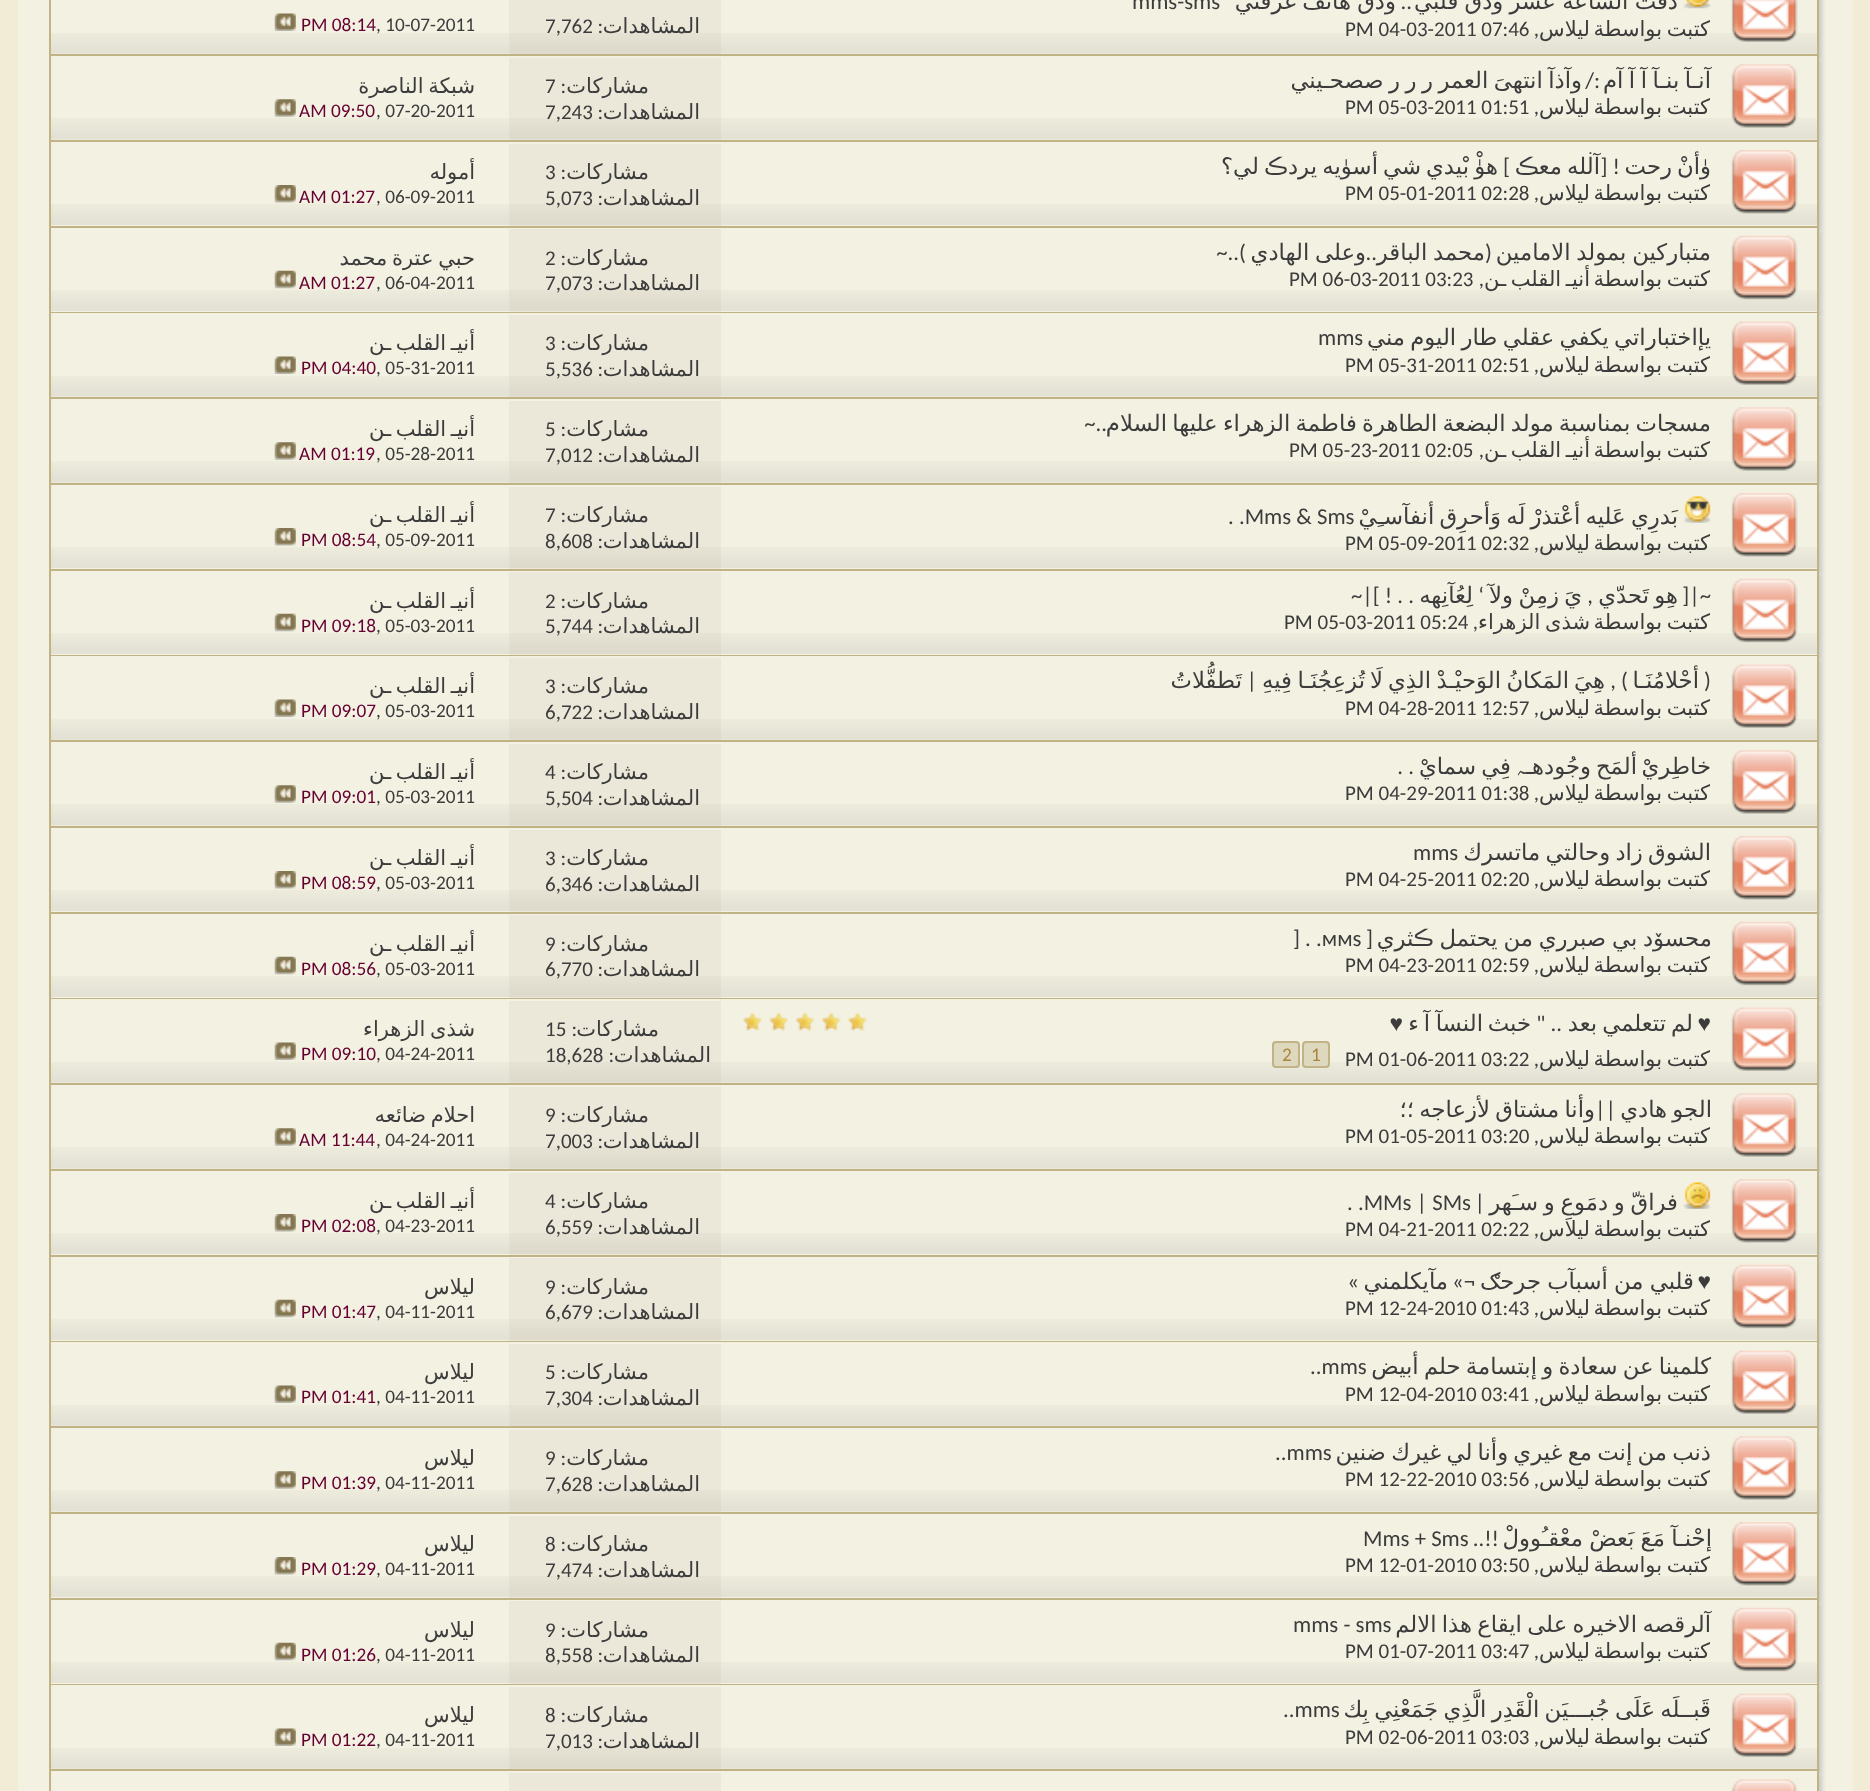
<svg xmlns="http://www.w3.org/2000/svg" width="1870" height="1791">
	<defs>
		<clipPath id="clip1"><rect x="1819" y="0" width="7" height="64" /></clipPath>
	</defs>
	<rect width="100%" height="100%" fill="#F2EBD5" />
	<rect x="18" y="0" width="1835" height="1791" fill="#F3F1E2" />
	<g clip-path="url(#clip1)">
		<rect x="56" y="-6" width="1766" height="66" fill="#C8C8C8" filter="blur(2px)" />
	</g>
	<image x="51" y="33" width="1766" height="21" href="assets/img1.png" />
	<rect x="1817" y="0" width="2" height="56" fill="#C0B385" />
	<rect x="49" y="54" width="1769" height="2" fill="#C0B385" />
	<rect x="49" y="0" width="2" height="56" fill="#C0B385" />
	<image x="1731" y="0" width="67" height="42" href="assets/img2.png" />
	<image x="1683" y="0" width="28" height="9" href="assets/img3.png" />
	<text x="1678" y="9" word-spacing="-1" font-family="DejaVu Sans" font-size="22.75" direction="rtl" fill="#3D3C3C">دقت الساعه عشر ودق قلبي</text>
	<text x="1412" y="9" font-family="Carlito" font-size="22.75" direction="rtl" fill="#3D3C3C">..</text>
	<text x="1396" y="9" word-spacing="-1" font-family="DejaVu Sans" font-size="22.75" direction="rtl" fill="#3D3C3C">ودق هاتف غرفتي</text>
	<text x="1132" y="9" font-family="Carlito" font-size="22.75" fill="#3D3C3C">mms-sms</text>
	<g font-family="DejaVu Sans" font-size="21" direction="rtl" fill="#3D3C3C">
		<text x="1710" y="36" word-spacing="-2">كتبت بواسطة</text>
		<text x="1590" y="36">ليلاس</text>
	</g>
	<text x="1539" y="36" font-family="Carlito" font-size="21" direction="rtl" fill="#3D3C3C">,</text>
	<text x="1345" y="36" font-family="Carlito" font-size="21" fill="#3D3C3C">PM 04-03-2011 07:46</text>
	<rect x="509" y="0" width="212" height="54" fill="#ECE8D9" />
	<image x="509" y="33" width="212" height="21" href="assets/img4.png" />
	<text x="700" y="33" font-family="DejaVu Sans" font-size="21" direction="rtl" fill="#3D3C3C">المشاهدات</text>
	<text x="603" y="33" font-family="Carlito" font-size="21" direction="rtl" fill="#3D3C3C">:</text>
	<text x="545" y="33" font-family="Carlito" font-size="21" fill="#3D3C3C">7,762</text>
	<text x="376" y="31" font-family="Carlito" font-size="19.25" fill="#3D3C3C">, 10-07-2011</text>
	<text x="301" y="31" font-family="Carlito" font-size="19.25" fill="#660033">PM 08:14</text>
	<image x="274" y="13" width="22" height="18" href="assets/img5.png" />
	<rect x="56" y="60" width="1766" height="85" fill="#C8C8C8" filter="blur(2px)" />
	<rect x="53" y="56" width="1764" height="84" fill="#F3F1E2" />
	<image x="51" y="118" width="1766" height="22" href="assets/img6.png" />
	<rect x="1817" y="56" width="2" height="86" fill="#C0B385" />
	<rect x="49" y="140" width="1769" height="2" fill="#C0B385" />
	<rect x="49" y="56" width="2" height="86" fill="#C0B385" />
	<image x="1731" y="64" width="67" height="64" href="assets/img7.png" />
	<text x="1711" y="88" word-spacing="-1.75" font-family="DejaVu Sans" font-size="22.75" direction="rtl" fill="#3D3C3C">آنـآ بنـآ آ آ آم</text>
	<text x="1600" y="88" font-family="Carlito" font-size="22.75" direction="rtl" fill="#3D3C3C">:/</text>
	<text x="1582" y="88" word-spacing="-1.75" font-family="DejaVu Sans" font-size="22.75" direction="rtl" fill="#3D3C3C">وآذآ انتهىَ العمر ر ر ر صصحـيني</text>
	<g font-family="DejaVu Sans" font-size="21" direction="rtl" fill="#3D3C3C">
		<text x="1710" y="114" word-spacing="-2">كتبت بواسطة</text>
		<text x="1590" y="114">ليلاس</text>
	</g>
	<text x="1539" y="114" font-family="Carlito" font-size="21" direction="rtl" fill="#3D3C3C">,</text>
	<text x="1345" y="114" font-family="Carlito" font-size="21" fill="#3D3C3C">PM 05-03-2011 01:51</text>
	<rect x="509" y="58" width="212" height="81" fill="#ECE8D9" />
	<image x="509" y="118" width="212" height="22" href="assets/img8.png" />
	<text x="649" y="93" font-family="DejaVu Sans" font-size="21" direction="rtl" fill="#3D3C3C">مشاركات</text>
	<text x="566" y="93" font-family="Carlito" font-size="21" direction="rtl" fill="#3D3C3C">:</text>
	<text x="545" y="93" font-family="Carlito" font-size="21" fill="#3D3C3C">7</text>
	<text x="700" y="119" font-family="DejaVu Sans" font-size="21" direction="rtl" fill="#3D3C3C">المشاهدات</text>
	<text x="603" y="119" font-family="Carlito" font-size="21" direction="rtl" fill="#3D3C3C">:</text>
	<text x="545" y="119" font-family="Carlito" font-size="21" fill="#3D3C3C">7,243</text>
	<text x="475" y="93" word-spacing="-2" font-family="DejaVu Sans" font-size="21" direction="rtl" fill="#3D3C3C">شبكة الناصرة</text>
	<text x="376" y="117" font-family="Carlito" font-size="19.25" fill="#3D3C3C">, 07-20-2011</text>
	<text x="299" y="117" font-family="Carlito" font-size="19.25" fill="#660033">AM 09:50</text>
	<image x="274" y="99" width="22" height="18" href="assets/img9.png" />
	<rect x="56" y="145" width="1766" height="86" fill="#C8C8C8" filter="blur(2px)" />
	<rect x="53" y="142" width="1764" height="84" fill="#F3F1E2" />
	<image x="51" y="204" width="1766" height="21" href="assets/img10.png" />
	<rect x="1817" y="142" width="2" height="86" fill="#C0B385" />
	<rect x="49" y="226" width="1769" height="2" fill="#C0B385" />
	<rect x="49" y="142" width="2" height="86" fill="#C0B385" />
	<image x="1731" y="150" width="67" height="64" href="assets/img11.png" />
	<g font-family="DejaVu Sans" font-size="22.75" direction="rtl" fill="#3D3C3C">
		<text x="1711" y="174">ۈأنْ</text>
		<text x="1672" y="174">رحت</text>
	</g>
	<text x="1620" y="174" font-family="Carlito" font-size="22.75" direction="rtl" fill="#3D3C3C">! [</text>
	<g font-family="DejaVu Sans" font-size="22.75" direction="rtl" fill="#3D3C3C">
		<text x="1600" y="174">آڶله</text>
		<text x="1562" y="174">معڪ</text>
	</g>
	<text x="1510" y="174" font-family="Carlito" font-size="22.75" direction="rtl" fill="#3D3C3C">]</text>
	<g font-family="DejaVu Sans" font-size="22.75" direction="rtl" fill="#3D3C3C">
		<text x="1498" y="174">هۈْ</text>
		<text x="1469" y="174">بْيدي</text>
		<text x="1421" y="174">شي</text>
		<text x="1378" y="174">أسۈيه</text>
		<text x="1317" y="174">يردڪ</text>
		<text x="1259" y="174">لي؟</text>
	</g>
	<g font-family="DejaVu Sans" font-size="21" direction="rtl" fill="#3D3C3C">
		<text x="1710" y="200" word-spacing="-2">كتبت بواسطة</text>
		<text x="1590" y="200">ليلاس</text>
	</g>
	<text x="1539" y="200" font-family="Carlito" font-size="21" direction="rtl" fill="#3D3C3C">,</text>
	<text x="1345" y="200" font-family="Carlito" font-size="21" fill="#3D3C3C">PM 05-01-2011 02:28</text>
	<rect x="509" y="144" width="212" height="82" fill="#ECE8D9" />
	<image x="509" y="204" width="212" height="21" href="assets/img12.png" />
	<text x="649" y="179" font-family="DejaVu Sans" font-size="21" direction="rtl" fill="#3D3C3C">مشاركات</text>
	<text x="566" y="179" font-family="Carlito" font-size="21" direction="rtl" fill="#3D3C3C">:</text>
	<text x="545" y="179" font-family="Carlito" font-size="21" fill="#3D3C3C">3</text>
	<text x="700" y="205" font-family="DejaVu Sans" font-size="21" direction="rtl" fill="#3D3C3C">المشاهدات</text>
	<text x="603" y="205" font-family="Carlito" font-size="21" direction="rtl" fill="#3D3C3C">:</text>
	<text x="545" y="205" font-family="Carlito" font-size="21" fill="#3D3C3C">5,073</text>
	<text x="475" y="179" font-family="DejaVu Sans" font-size="21" direction="rtl" fill="#3D3C3C">أموله</text>
	<text x="376" y="203" font-family="Carlito" font-size="19.25" fill="#3D3C3C">, 06-09-2011</text>
	<text x="299" y="203" font-family="Carlito" font-size="19.25" fill="#660033">AM 01:27</text>
	<image x="274" y="185" width="22" height="18" href="assets/img13.png" />
	<rect x="56" y="231" width="1766" height="86" fill="#C8C8C8" filter="blur(2px)" />
	<rect x="53" y="228" width="1764" height="84" fill="#F3F1E2" />
	<image x="51" y="290" width="1766" height="21" href="assets/img14.png" />
	<rect x="1817" y="228" width="2" height="85" fill="#C0B385" />
	<rect x="49" y="312" width="1769" height="1" fill="#C0B385" />
	<rect x="49" y="228" width="2" height="85" fill="#C0B385" />
	<image x="1731" y="235" width="67" height="65" href="assets/img15.png" />
	<text x="1711" y="260" word-spacing="-1.5" font-family="DejaVu Sans" font-size="22.75" direction="rtl" fill="#3D3C3C">متباركين بمولد الامامين</text>
	<text x="1492" y="260" font-family="Carlito" font-size="22.75" direction="rtl" fill="#3D3C3C">(</text>
	<text x="1485" y="260" word-spacing="-1.5" font-family="DejaVu Sans" font-size="22.75" direction="rtl" fill="#3D3C3C">محمد الباقر</text>
	<text x="1377" y="260" font-family="Carlito" font-size="22.75" direction="rtl" fill="#3D3C3C">..</text>
	<text x="1366" y="260" word-spacing="-1.5" font-family="DejaVu Sans" font-size="22.75" direction="rtl" fill="#3D3C3C">وعلى الهادي</text>
	<text x="1246" y="260" font-family="Carlito" font-size="22.75" direction="rtl" fill="#3D3C3C">)..~</text>
	<g font-family="DejaVu Sans" font-size="21" direction="rtl" fill="#3D3C3C">
		<text x="1710" y="286" word-spacing="-2">كتبت بواسطة</text>
		<text x="1590" y="286" word-spacing="-2">أنيـ القلب ـن</text>
	</g>
	<text x="1484" y="286" font-family="Carlito" font-size="21" direction="rtl" fill="#3D3C3C">,</text>
	<text x="1289" y="286" font-family="Carlito" font-size="21" fill="#3D3C3C">PM 06-03-2011 03:23</text>
	<rect x="509" y="229" width="212" height="83" fill="#ECE8D9" />
	<image x="509" y="290" width="212" height="21" href="assets/img16.png" />
	<text x="649" y="265" font-family="DejaVu Sans" font-size="21" direction="rtl" fill="#3D3C3C">مشاركات</text>
	<text x="566" y="265" font-family="Carlito" font-size="21" direction="rtl" fill="#3D3C3C">:</text>
	<text x="545" y="265" font-family="Carlito" font-size="21" fill="#3D3C3C">2</text>
	<text x="700" y="290" font-family="DejaVu Sans" font-size="21" direction="rtl" fill="#3D3C3C">المشاهدات</text>
	<text x="603" y="290" font-family="Carlito" font-size="21" direction="rtl" fill="#3D3C3C">:</text>
	<text x="545" y="290" font-family="Carlito" font-size="21" fill="#3D3C3C">7,073</text>
	<text x="475" y="265" word-spacing="-2" font-family="DejaVu Sans" font-size="21" direction="rtl" fill="#3D3C3C">حبي عترة محمد</text>
	<text x="376" y="289" font-family="Carlito" font-size="19.25" fill="#3D3C3C">, 06-04-2011</text>
	<text x="299" y="289" font-family="Carlito" font-size="19.25" fill="#660033">AM 01:27</text>
	<image x="274" y="270" width="22" height="19" href="assets/img17.png" />
	<rect x="56" y="317" width="1766" height="86" fill="#C8C8C8" filter="blur(2px)" />
	<rect x="53" y="313" width="1764" height="84" fill="#F3F1E2" />
	<image x="51" y="376" width="1766" height="21" href="assets/img18.png" />
	<rect x="1817" y="313" width="2" height="86" fill="#C0B385" />
	<rect x="49" y="397" width="1769" height="2" fill="#C0B385" />
	<rect x="49" y="313" width="2" height="86" fill="#C0B385" />
	<image x="1731" y="321" width="67" height="64" href="assets/img19.png" />
	<text x="1711" y="345" word-spacing="-2" font-family="DejaVu Sans" font-size="22.75" direction="rtl" fill="#3D3C3C">يإاختباراتي يكفي عقلي طار اليوم مني</text>
	<text x="1318" y="345" font-family="Carlito" font-size="22.75" fill="#3D3C3C">mms</text>
	<g font-family="DejaVu Sans" font-size="21" direction="rtl" fill="#3D3C3C">
		<text x="1710" y="372" word-spacing="-2">كتبت بواسطة</text>
		<text x="1590" y="372">ليلاس</text>
	</g>
	<text x="1539" y="372" font-family="Carlito" font-size="21" direction="rtl" fill="#3D3C3C">,</text>
	<text x="1345" y="372" font-family="Carlito" font-size="21" fill="#3D3C3C">PM 05-31-2011 02:51</text>
	<rect x="509" y="315" width="212" height="82" fill="#ECE8D9" />
	<image x="509" y="376" width="212" height="21" href="assets/img20.png" />
	<text x="649" y="350" font-family="DejaVu Sans" font-size="21" direction="rtl" fill="#3D3C3C">مشاركات</text>
	<text x="566" y="350" font-family="Carlito" font-size="21" direction="rtl" fill="#3D3C3C">:</text>
	<text x="545" y="350" font-family="Carlito" font-size="21" fill="#3D3C3C">3</text>
	<text x="700" y="376" font-family="DejaVu Sans" font-size="21" direction="rtl" fill="#3D3C3C">المشاهدات</text>
	<text x="603" y="376" font-family="Carlito" font-size="21" direction="rtl" fill="#3D3C3C">:</text>
	<text x="545" y="376" font-family="Carlito" font-size="21" fill="#3D3C3C">5,536</text>
	<text x="475" y="350" word-spacing="-2" font-family="DejaVu Sans" font-size="21" direction="rtl" fill="#3D3C3C">أنيـ القلب ـن</text>
	<text x="376" y="374" font-family="Carlito" font-size="19.25" fill="#3D3C3C">, 05-31-2011</text>
	<text x="301" y="374" font-family="Carlito" font-size="19.25" fill="#660033">PM 04:40</text>
	<image x="274" y="356" width="22" height="18" href="assets/img5.png" />
	<rect x="56" y="403" width="1766" height="85" fill="#C8C8C8" filter="blur(2px)" />
	<rect x="53" y="399" width="1764" height="84" fill="#F3F1E2" />
	<image x="51" y="461" width="1766" height="22" href="assets/img21.png" />
	<rect x="1817" y="399" width="2" height="86" fill="#C0B385" />
	<rect x="49" y="483" width="1769" height="2" fill="#C0B385" />
	<rect x="49" y="399" width="2" height="86" fill="#C0B385" />
	<image x="1731" y="407" width="67" height="64" href="assets/img22.png" />
	<text x="1711" y="431" word-spacing="-2" font-family="DejaVu Sans" font-size="22.75" direction="rtl" fill="#3D3C3C">مسجات بمناسبة مولد البضعة الطاهرة فاطمة الزهراء عليها السلام</text>
	<text x="1107" y="431" font-family="Carlito" font-size="22.75" direction="rtl" fill="#3D3C3C">..~</text>
	<g font-family="DejaVu Sans" font-size="21" direction="rtl" fill="#3D3C3C">
		<text x="1710" y="457" word-spacing="-2">كتبت بواسطة</text>
		<text x="1590" y="457" word-spacing="-2">أنيـ القلب ـن</text>
	</g>
	<text x="1484" y="457" font-family="Carlito" font-size="21" direction="rtl" fill="#3D3C3C">,</text>
	<text x="1289" y="457" font-family="Carlito" font-size="21" fill="#3D3C3C">PM 05-23-2011 02:05</text>
	<rect x="509" y="401" width="212" height="81" fill="#ECE8D9" />
	<image x="509" y="461" width="212" height="22" href="assets/img23.png" />
	<text x="649" y="436" font-family="DejaVu Sans" font-size="21" direction="rtl" fill="#3D3C3C">مشاركات</text>
	<text x="566" y="436" font-family="Carlito" font-size="21" direction="rtl" fill="#3D3C3C">:</text>
	<text x="545" y="436" font-family="Carlito" font-size="21" fill="#3D3C3C">5</text>
	<text x="700" y="462" font-family="DejaVu Sans" font-size="21" direction="rtl" fill="#3D3C3C">المشاهدات</text>
	<text x="603" y="462" font-family="Carlito" font-size="21" direction="rtl" fill="#3D3C3C">:</text>
	<text x="545" y="462" font-family="Carlito" font-size="21" fill="#3D3C3C">7,012</text>
	<text x="475" y="436" word-spacing="-2" font-family="DejaVu Sans" font-size="21" direction="rtl" fill="#3D3C3C">أنيـ القلب ـن</text>
	<text x="376" y="460" font-family="Carlito" font-size="19.25" fill="#3D3C3C">, 05-28-2011</text>
	<text x="299" y="460" font-family="Carlito" font-size="19.25" fill="#660033">AM 01:19</text>
	<image x="274" y="442" width="22" height="18" href="assets/img24.png" />
	<rect x="56" y="488" width="1766" height="86" fill="#C8C8C8" filter="blur(2px)" />
	<rect x="53" y="485" width="1764" height="84" fill="#F3F1E2" />
	<image x="51" y="547" width="1766" height="21" href="assets/img10.png" />
	<rect x="1817" y="485" width="2" height="86" fill="#C0B385" />
	<rect x="49" y="569" width="1769" height="2" fill="#C0B385" />
	<rect x="49" y="485" width="2" height="86" fill="#C0B385" />
	<image x="1731" y="493" width="67" height="64" href="assets/img11.png" />
	<image x="1684" y="496" width="27" height="27" href="assets/img25.png" />
	<text x="1678" y="524" word-spacing="-2" font-family="DejaVu Sans" font-size="22.75" direction="rtl" fill="#3D3C3C">بَدرِي عَليه أعْتذرْ لَه وَأحرِق أنفآسـِيْ</text>
	<text x="1228" y="524" font-family="Carlito" font-size="22.75" fill="#3D3C3C">. .Mms &amp; Sms</text>
	<g font-family="DejaVu Sans" font-size="21" direction="rtl" fill="#3D3C3C">
		<text x="1710" y="550" word-spacing="-2">كتبت بواسطة</text>
		<text x="1590" y="550">ليلاس</text>
	</g>
	<text x="1539" y="550" font-family="Carlito" font-size="21" direction="rtl" fill="#3D3C3C">,</text>
	<text x="1345" y="550" font-family="Carlito" font-size="21" fill="#3D3C3C">PM 05-09-2011 02:32</text>
	<rect x="509" y="487" width="212" height="82" fill="#ECE8D9" />
	<image x="509" y="547" width="212" height="21" href="assets/img12.png" />
	<text x="649" y="522" font-family="DejaVu Sans" font-size="21" direction="rtl" fill="#3D3C3C">مشاركات</text>
	<text x="566" y="522" font-family="Carlito" font-size="21" direction="rtl" fill="#3D3C3C">:</text>
	<text x="545" y="522" font-family="Carlito" font-size="21" fill="#3D3C3C">7</text>
	<text x="700" y="548" font-family="DejaVu Sans" font-size="21" direction="rtl" fill="#3D3C3C">المشاهدات</text>
	<text x="603" y="548" font-family="Carlito" font-size="21" direction="rtl" fill="#3D3C3C">:</text>
	<text x="545" y="548" font-family="Carlito" font-size="21" fill="#3D3C3C">8,608</text>
	<text x="475" y="522" word-spacing="-2" font-family="DejaVu Sans" font-size="21" direction="rtl" fill="#3D3C3C">أنيـ القلب ـن</text>
	<text x="376" y="546" font-family="Carlito" font-size="19.25" fill="#3D3C3C">, 05-09-2011</text>
	<text x="301" y="546" font-family="Carlito" font-size="19.25" fill="#660033">PM 08:54</text>
	<image x="274" y="528" width="22" height="18" href="assets/img26.png" />
	<rect x="56" y="574" width="1766" height="86" fill="#C8C8C8" filter="blur(2px)" />
	<rect x="53" y="571" width="1764" height="84" fill="#F3F1E2" />
	<image x="51" y="633" width="1766" height="21" href="assets/img27.png" />
	<rect x="1817" y="571" width="2" height="85" fill="#C0B385" />
	<rect x="49" y="655" width="1769" height="1" fill="#C0B385" />
	<rect x="49" y="571" width="2" height="85" fill="#C0B385" />
	<image x="1731" y="578" width="67" height="65" href="assets/img28.png" />
	<text x="1711" y="603" font-family="Carlito" font-size="22.75" direction="rtl" fill="#3D3C3C">~|[</text>
	<g font-family="DejaVu Sans" font-size="22.75" direction="rtl" fill="#3D3C3C">
		<text x="1678" y="603">هِو</text>
		<text x="1649" y="603">تَحدّي</text>
	</g>
	<text x="1593" y="603" font-family="Carlito" font-size="22.75" direction="rtl" fill="#3D3C3C">,</text>
	<g font-family="DejaVu Sans" font-size="22.75" direction="rtl" fill="#3D3C3C">
		<text x="1582" y="603">يَ</text>
		<text x="1559" y="603">زمِنْ</text>
		<text x="1513" y="603">ولآ</text>
	</g>
	<text x="1484" y="603" font-family="Carlito" font-size="22.75" direction="rtl" fill="#3D3C3C">‘</text>
	<text x="1473" y="603" font-family="DejaVu Sans" font-size="22.75" direction="rtl" fill="#3D3C3C">لِعُآنِهه</text>
	<text x="1414" y="603" font-family="Carlito" font-size="22.75" direction="rtl" fill="#3D3C3C">. . ! ]|~</text>
	<g font-family="DejaVu Sans" font-size="21" direction="rtl" fill="#3D3C3C">
		<text x="1710" y="629" word-spacing="-2">كتبت بواسطة</text>
		<text x="1590" y="629" word-spacing="-2">شذى الزهراء</text>
	</g>
	<text x="1478" y="629" font-family="Carlito" font-size="21" direction="rtl" fill="#3D3C3C">,</text>
	<text x="1284" y="629" font-family="Carlito" font-size="21" fill="#3D3C3C">PM 05-03-2011 05:24</text>
	<rect x="509" y="572" width="212" height="83" fill="#ECE8D9" />
	<image x="509" y="633" width="212" height="21" href="assets/img29.png" />
	<text x="649" y="608" font-family="DejaVu Sans" font-size="21" direction="rtl" fill="#3D3C3C">مشاركات</text>
	<text x="566" y="608" font-family="Carlito" font-size="21" direction="rtl" fill="#3D3C3C">:</text>
	<text x="545" y="608" font-family="Carlito" font-size="21" fill="#3D3C3C">2</text>
	<text x="700" y="633" font-family="DejaVu Sans" font-size="21" direction="rtl" fill="#3D3C3C">المشاهدات</text>
	<text x="603" y="633" font-family="Carlito" font-size="21" direction="rtl" fill="#3D3C3C">:</text>
	<text x="545" y="633" font-family="Carlito" font-size="21" fill="#3D3C3C">5,744</text>
	<text x="475" y="608" word-spacing="-2" font-family="DejaVu Sans" font-size="21" direction="rtl" fill="#3D3C3C">أنيـ القلب ـن</text>
	<text x="376" y="632" font-family="Carlito" font-size="19.25" fill="#3D3C3C">, 05-03-2011</text>
	<text x="301" y="632" font-family="Carlito" font-size="19.25" fill="#660033">PM 09:18</text>
	<image x="274" y="613" width="22" height="19" href="assets/img17.png" />
	<rect x="56" y="660" width="1766" height="86" fill="#C8C8C8" filter="blur(2px)" />
	<rect x="53" y="656" width="1764" height="84" fill="#F3F1E2" />
	<image x="51" y="719" width="1766" height="21" href="assets/img30.png" />
	<rect x="1817" y="656" width="2" height="86" fill="#C0B385" />
	<rect x="49" y="740" width="1769" height="2" fill="#C0B385" />
	<rect x="49" y="656" width="2" height="86" fill="#C0B385" />
	<image x="1731" y="664" width="67" height="64" href="assets/img31.png" />
	<text x="1711" y="688" font-family="Carlito" font-size="22.75" direction="rtl" fill="#3D3C3C">(</text>
	<text x="1699" y="688" font-family="DejaVu Sans" font-size="22.75" direction="rtl" fill="#3D3C3C">أحْلامُنَـا</text>
	<text x="1628" y="688" font-family="Carlito" font-size="22.75" direction="rtl" fill="#3D3C3C">) ,</text>
	<g font-family="DejaVu Sans" font-size="22.75" direction="rtl" fill="#3D3C3C">
		<text x="1605" y="688">هِيَ</text>
		<text x="1569" y="688">المَكانُ</text>
		<text x="1501" y="688">الوَحيْـدْ</text>
		<text x="1431" y="688">الذِي</text>
		<text x="1383" y="688">لَا</text>
		<text x="1365" y="688">تُزعِجُنَـا</text>
		<text x="1292" y="688">فِيهِ</text>
	</g>
	<text x="1257" y="688" font-family="Carlito" font-size="22.75" direction="rtl" fill="#3D3C3C">|</text>
	<text x="1242" y="688" font-family="DejaVu Sans" font-size="22.75" direction="rtl" fill="#3D3C3C">تَطفُّلاتُ</text>
	<g font-family="DejaVu Sans" font-size="21" direction="rtl" fill="#3D3C3C">
		<text x="1710" y="715" word-spacing="-2">كتبت بواسطة</text>
		<text x="1590" y="715">ليلاس</text>
	</g>
	<text x="1539" y="715" font-family="Carlito" font-size="21" direction="rtl" fill="#3D3C3C">,</text>
	<text x="1345" y="715" font-family="Carlito" font-size="21" fill="#3D3C3C">PM 04-28-2011 12:57</text>
	<rect x="509" y="658" width="212" height="82" fill="#ECE8D9" />
	<image x="509" y="719" width="212" height="21" href="assets/img4.png" />
	<text x="649" y="693" font-family="DejaVu Sans" font-size="21" direction="rtl" fill="#3D3C3C">مشاركات</text>
	<text x="566" y="693" font-family="Carlito" font-size="21" direction="rtl" fill="#3D3C3C">:</text>
	<text x="545" y="693" font-family="Carlito" font-size="21" fill="#3D3C3C">3</text>
	<text x="700" y="719" font-family="DejaVu Sans" font-size="21" direction="rtl" fill="#3D3C3C">المشاهدات</text>
	<text x="603" y="719" font-family="Carlito" font-size="21" direction="rtl" fill="#3D3C3C">:</text>
	<text x="545" y="719" font-family="Carlito" font-size="21" fill="#3D3C3C">6,722</text>
	<text x="475" y="693" word-spacing="-2" font-family="DejaVu Sans" font-size="21" direction="rtl" fill="#3D3C3C">أنيـ القلب ـن</text>
	<text x="376" y="717" font-family="Carlito" font-size="19.25" fill="#3D3C3C">, 05-03-2011</text>
	<text x="301" y="717" font-family="Carlito" font-size="19.25" fill="#660033">PM 09:07</text>
	<image x="274" y="699" width="22" height="18" href="assets/img5.png" />
	<rect x="56" y="746" width="1766" height="85" fill="#C8C8C8" filter="blur(2px)" />
	<rect x="53" y="742" width="1764" height="84" fill="#F3F1E2" />
	<image x="51" y="804" width="1766" height="22" href="assets/img21.png" />
	<rect x="1817" y="742" width="2" height="86" fill="#C0B385" />
	<rect x="49" y="826" width="1769" height="2" fill="#C0B385" />
	<rect x="49" y="742" width="2" height="86" fill="#C0B385" />
	<image x="1731" y="750" width="67" height="64" href="assets/img22.png" />
	<g font-family="DejaVu Sans" font-size="22.75" direction="rtl" fill="#3D3C3C">
		<text x="1711" y="774">خاطِريْ</text>
		<text x="1637" y="774">ألمَح</text>
	</g>
	<text x="1525" y="774" font-family="FreeSerif" font-size="22.75" direction="rtl" fill="#3D3C3C">ﮧ</text>
	<g font-family="DejaVu Sans" font-size="22.75" direction="rtl" fill="#3D3C3C">
		<text x="1591" y="774">وجُودهـ</text>
		<text x="1511" y="774">فِي</text>
		<text x="1476" y="774">سمايْ</text>
	</g>
	<text x="1414" y="774" font-family="Carlito" font-size="22.75" direction="rtl" fill="#3D3C3C">. .</text>
	<g font-family="DejaVu Sans" font-size="21" direction="rtl" fill="#3D3C3C">
		<text x="1710" y="800" word-spacing="-2">كتبت بواسطة</text>
		<text x="1590" y="800">ليلاس</text>
	</g>
	<text x="1539" y="800" font-family="Carlito" font-size="21" direction="rtl" fill="#3D3C3C">,</text>
	<text x="1345" y="800" font-family="Carlito" font-size="21" fill="#3D3C3C">PM 04-29-2011 01:38</text>
	<rect x="509" y="744" width="212" height="81" fill="#ECE8D9" />
	<image x="509" y="804" width="212" height="22" href="assets/img23.png" />
	<text x="649" y="779" font-family="DejaVu Sans" font-size="21" direction="rtl" fill="#3D3C3C">مشاركات</text>
	<text x="566" y="779" font-family="Carlito" font-size="21" direction="rtl" fill="#3D3C3C">:</text>
	<text x="545" y="779" font-family="Carlito" font-size="21" fill="#3D3C3C">4</text>
	<text x="700" y="805" font-family="DejaVu Sans" font-size="21" direction="rtl" fill="#3D3C3C">المشاهدات</text>
	<text x="603" y="805" font-family="Carlito" font-size="21" direction="rtl" fill="#3D3C3C">:</text>
	<text x="545" y="805" font-family="Carlito" font-size="21" fill="#3D3C3C">5,504</text>
	<text x="475" y="779" word-spacing="-2" font-family="DejaVu Sans" font-size="21" direction="rtl" fill="#3D3C3C">أنيـ القلب ـن</text>
	<text x="376" y="803" font-family="Carlito" font-size="19.25" fill="#3D3C3C">, 05-03-2011</text>
	<text x="301" y="803" font-family="Carlito" font-size="19.25" fill="#660033">PM 09:01</text>
	<image x="274" y="785" width="22" height="18" href="assets/img9.png" />
	<rect x="56" y="831" width="1766" height="86" fill="#C8C8C8" filter="blur(2px)" />
	<rect x="53" y="828" width="1764" height="84" fill="#F3F1E2" />
	<image x="51" y="890" width="1766" height="21" href="assets/img27.png" />
	<rect x="1817" y="828" width="2" height="86" fill="#C0B385" />
	<rect x="49" y="912" width="1769" height="2" fill="#C0B385" />
	<rect x="49" y="828" width="2" height="86" fill="#C0B385" />
	<image x="1731" y="836" width="67" height="64" href="assets/img32.png" />
	<text x="1711" y="860" word-spacing="-2" font-family="DejaVu Sans" font-size="22.75" direction="rtl" fill="#3D3C3C">الشوق زاد وحالتي ماتسرك</text>
	<text x="1413" y="860" font-family="Carlito" font-size="22.75" fill="#3D3C3C">mms</text>
	<g font-family="DejaVu Sans" font-size="21" direction="rtl" fill="#3D3C3C">
		<text x="1710" y="886" word-spacing="-2">كتبت بواسطة</text>
		<text x="1590" y="886">ليلاس</text>
	</g>
	<text x="1539" y="886" font-family="Carlito" font-size="21" direction="rtl" fill="#3D3C3C">,</text>
	<text x="1345" y="886" font-family="Carlito" font-size="21" fill="#3D3C3C">PM 04-25-2011 02:20</text>
	<rect x="509" y="830" width="212" height="82" fill="#ECE8D9" />
	<image x="509" y="890" width="212" height="21" href="assets/img33.png" />
	<text x="649" y="865" font-family="DejaVu Sans" font-size="21" direction="rtl" fill="#3D3C3C">مشاركات</text>
	<text x="566" y="865" font-family="Carlito" font-size="21" direction="rtl" fill="#3D3C3C">:</text>
	<text x="545" y="865" font-family="Carlito" font-size="21" fill="#3D3C3C">3</text>
	<text x="700" y="891" font-family="DejaVu Sans" font-size="21" direction="rtl" fill="#3D3C3C">المشاهدات</text>
	<text x="603" y="891" font-family="Carlito" font-size="21" direction="rtl" fill="#3D3C3C">:</text>
	<text x="545" y="891" font-family="Carlito" font-size="21" fill="#3D3C3C">6,346</text>
	<text x="475" y="865" word-spacing="-2" font-family="DejaVu Sans" font-size="21" direction="rtl" fill="#3D3C3C">أنيـ القلب ـن</text>
	<text x="376" y="889" font-family="Carlito" font-size="19.25" fill="#3D3C3C">, 05-03-2011</text>
	<text x="301" y="889" font-family="Carlito" font-size="19.25" fill="#660033">PM 08:59</text>
	<image x="274" y="871" width="22" height="18" href="assets/img34.png" />
	<rect x="56" y="917" width="1766" height="86" fill="#C8C8C8" filter="blur(2px)" />
	<rect x="53" y="914" width="1764" height="84" fill="#F3F1E2" />
	<image x="51" y="976" width="1766" height="21" href="assets/img14.png" />
	<rect x="1817" y="914" width="2" height="85" fill="#C0B385" />
	<rect x="49" y="998" width="1769" height="1" fill="#C0B385" />
	<rect x="49" y="914" width="2" height="85" fill="#C0B385" />
	<image x="1731" y="921" width="67" height="65" href="assets/img15.png" />
	<text x="1712" y="946" word-spacing="-1.5" font-family="DejaVu Sans" font-size="22.75" direction="rtl" fill="#3D3C3C">محسۆد بي صبرري من يحتمل ڪثري</text>
	<text x="1373" y="946" font-family="Carlito" font-size="22.75" direction="rtl" fill="#3D3C3C">[</text>
	<text x="1293" y="946" font-family="Carlito" font-size="22.75" fill="#3D3C3C">] . .ммs</text>
	<g font-family="DejaVu Sans" font-size="21" direction="rtl" fill="#3D3C3C">
		<text x="1710" y="972" word-spacing="-2">كتبت بواسطة</text>
		<text x="1590" y="972">ليلاس</text>
	</g>
	<text x="1539" y="972" font-family="Carlito" font-size="21" direction="rtl" fill="#3D3C3C">,</text>
	<text x="1345" y="972" font-family="Carlito" font-size="21" fill="#3D3C3C">PM 04-23-2011 02:59</text>
	<rect x="509" y="915" width="212" height="83" fill="#ECE8D9" />
	<image x="509" y="976" width="212" height="21" href="assets/img16.png" />
	<text x="649" y="951" font-family="DejaVu Sans" font-size="21" direction="rtl" fill="#3D3C3C">مشاركات</text>
	<text x="566" y="951" font-family="Carlito" font-size="21" direction="rtl" fill="#3D3C3C">:</text>
	<text x="545" y="951" font-family="Carlito" font-size="21" fill="#3D3C3C">9</text>
	<text x="700" y="976" font-family="DejaVu Sans" font-size="21" direction="rtl" fill="#3D3C3C">المشاهدات</text>
	<text x="603" y="976" font-family="Carlito" font-size="21" direction="rtl" fill="#3D3C3C">:</text>
	<text x="545" y="976" font-family="Carlito" font-size="21" fill="#3D3C3C">6,770</text>
	<text x="475" y="951" word-spacing="-2" font-family="DejaVu Sans" font-size="21" direction="rtl" fill="#3D3C3C">أنيـ القلب ـن</text>
	<text x="376" y="975" font-family="Carlito" font-size="19.25" fill="#3D3C3C">, 05-03-2011</text>
	<text x="301" y="975" font-family="Carlito" font-size="19.25" fill="#660033">PM 08:56</text>
	<image x="274" y="956" width="22" height="19" href="assets/img17.png" />
	<rect x="56" y="1003" width="1766" height="86" fill="#C8C8C8" filter="blur(2px)" />
	<rect x="53" y="999" width="1764" height="84" fill="#F3F1E2" />
	<image x="51" y="1062" width="1766" height="21" href="assets/img18.png" />
	<rect x="1817" y="999" width="2" height="86" fill="#C0B385" />
	<rect x="49" y="1083" width="1769" height="2" fill="#C0B385" />
	<rect x="49" y="999" width="2" height="86" fill="#C0B385" />
	<image x="1731" y="1007" width="67" height="64" href="assets/img19.png" />
	<image x="743" y="1012" width="124" height="19" href="assets/img35.png" />
	<text x="1711" y="1031" font-family="Liberation Sans" font-size="22.75" direction="rtl" fill="#3D3C3C">♥</text>
	<g font-family="DejaVu Sans" font-size="22.75" direction="rtl" fill="#3D3C3C">
		<text x="1693" y="1031">لم</text>
		<text x="1666" y="1031">تتعلمي</text>
		<text x="1597" y="1031">بعد</text>
	</g>
	<text x="1562" y="1031" font-family="Carlito" font-size="22.75" direction="rtl" fill="#3D3C3C">.. "</text>
	<g font-family="DejaVu Sans" font-size="22.75" direction="rtl" fill="#3D3C3C">
		<text x="1531" y="1031">خبث</text>
		<text x="1483" y="1031">النسآ</text>
		<text x="1430" y="1031">آ</text>
		<text x="1419" y="1031">ء</text>
	</g>
	<text x="1403" y="1031" font-family="Liberation Sans" font-size="22.75" direction="rtl" fill="#3D3C3C">♥</text>
	<g font-family="DejaVu Sans" font-size="21" direction="rtl" fill="#3D3C3C">
		<text x="1710" y="1066" word-spacing="-2">كتبت بواسطة</text>
		<text x="1590" y="1066">ليلاس</text>
	</g>
	<text x="1539" y="1066" font-family="Carlito" font-size="21" direction="rtl" fill="#3D3C3C">,</text>
	<text x="1345" y="1066" font-family="Carlito" font-size="21" fill="#3D3C3C">PM 01-06-2011 03:22</text>
	<rect x="1303" y="1042" width="26" height="25" rx="3" fill="#DED8BE" stroke="#C0B385" stroke-width="2" />
	<text x="1311" y="1061" font-family="Carlito" font-size="19.25" fill="#A9873D">1</text>
	<rect x="1273" y="1042" width="26" height="25" rx="3" fill="#DED8BE" stroke="#C0B385" stroke-width="2" />
	<text x="1282" y="1061" font-family="Carlito" font-size="19.25" fill="#A9873D">2</text>
	<rect x="509" y="1001" width="212" height="82" fill="#ECE8D9" />
	<image x="509" y="1062" width="212" height="21" href="assets/img20.png" />
	<text x="659" y="1036" font-family="DejaVu Sans" font-size="21" direction="rtl" fill="#3D3C3C">مشاركات</text>
	<text x="577" y="1036" font-family="Carlito" font-size="21" direction="rtl" fill="#3D3C3C">:</text>
	<text x="545" y="1036" font-family="Carlito" font-size="21" fill="#3D3C3C">15</text>
	<text x="711" y="1062" font-family="DejaVu Sans" font-size="21" direction="rtl" fill="#3D3C3C">المشاهدات</text>
	<text x="614" y="1062" font-family="Carlito" font-size="21" direction="rtl" fill="#3D3C3C">:</text>
	<text x="545" y="1062" font-family="Carlito" font-size="21" fill="#3D3C3C">18,628</text>
	<text x="475" y="1036" word-spacing="-2" font-family="DejaVu Sans" font-size="21" direction="rtl" fill="#3D3C3C">شذى الزهراء</text>
	<text x="376" y="1060" font-family="Carlito" font-size="19.25" fill="#3D3C3C">, 04-24-2011</text>
	<text x="301" y="1060" font-family="Carlito" font-size="19.25" fill="#660033">PM 09:10</text>
	<image x="274" y="1042" width="22" height="18" href="assets/img5.png" />
	<rect x="56" y="1089" width="1766" height="85" fill="#C8C8C8" filter="blur(2px)" />
	<rect x="53" y="1085" width="1764" height="84" fill="#F3F1E2" />
	<image x="51" y="1147" width="1766" height="22" href="assets/img21.png" />
	<rect x="1817" y="1085" width="2" height="86" fill="#C0B385" />
	<rect x="49" y="1169" width="1769" height="2" fill="#C0B385" />
	<rect x="49" y="1085" width="2" height="86" fill="#C0B385" />
	<image x="1731" y="1093" width="67" height="64" href="assets/img22.png" />
	<text x="1712" y="1117" word-spacing="-2" font-family="DejaVu Sans" font-size="22.75" direction="rtl" fill="#3D3C3C">الجو هادي</text>
	<text x="1616" y="1117" font-family="Carlito" font-size="22.75" direction="rtl" fill="#3D3C3C">||</text>
	<text x="1595" y="1117" word-spacing="-2" font-family="DejaVu Sans" font-size="22.75" direction="rtl" fill="#3D3C3C">وأنا مشتاق لأزعاجه ؛؛</text>
	<g font-family="DejaVu Sans" font-size="21" direction="rtl" fill="#3D3C3C">
		<text x="1710" y="1143" word-spacing="-2">كتبت بواسطة</text>
		<text x="1590" y="1143">ليلاس</text>
	</g>
	<text x="1539" y="1143" font-family="Carlito" font-size="21" direction="rtl" fill="#3D3C3C">,</text>
	<text x="1345" y="1143" font-family="Carlito" font-size="21" fill="#3D3C3C">PM 01-05-2011 03:20</text>
	<rect x="509" y="1087" width="212" height="81" fill="#ECE8D9" />
	<image x="509" y="1147" width="212" height="22" href="assets/img23.png" />
	<text x="649" y="1122" font-family="DejaVu Sans" font-size="21" direction="rtl" fill="#3D3C3C">مشاركات</text>
	<text x="566" y="1122" font-family="Carlito" font-size="21" direction="rtl" fill="#3D3C3C">:</text>
	<text x="545" y="1122" font-family="Carlito" font-size="21" fill="#3D3C3C">9</text>
	<text x="700" y="1148" font-family="DejaVu Sans" font-size="21" direction="rtl" fill="#3D3C3C">المشاهدات</text>
	<text x="603" y="1148" font-family="Carlito" font-size="21" direction="rtl" fill="#3D3C3C">:</text>
	<text x="545" y="1148" font-family="Carlito" font-size="21" fill="#3D3C3C">7,003</text>
	<text x="475" y="1122" word-spacing="-2" font-family="DejaVu Sans" font-size="21" direction="rtl" fill="#3D3C3C">احلام ضائعه</text>
	<text x="376" y="1146" font-family="Carlito" font-size="19.25" fill="#3D3C3C">, 04-24-2011</text>
	<text x="299" y="1146" font-family="Carlito" font-size="19.25" fill="#660033">AM 11:44</text>
	<image x="274" y="1128" width="22" height="18" href="assets/img9.png" />
	<rect x="56" y="1174" width="1766" height="86" fill="#C8C8C8" filter="blur(2px)" />
	<rect x="53" y="1171" width="1764" height="84" fill="#F3F1E2" />
	<image x="51" y="1233" width="1766" height="21" href="assets/img10.png" />
	<rect x="1817" y="1171" width="2" height="86" fill="#C0B385" />
	<rect x="49" y="1255" width="1769" height="2" fill="#C0B385" />
	<rect x="49" y="1171" width="2" height="86" fill="#C0B385" />
	<image x="1731" y="1179" width="67" height="64" href="assets/img36.png" />
	<image x="1683" y="1182" width="28" height="27" href="assets/img37.png" />
	<text x="1678" y="1210" word-spacing="-1.5" font-family="DejaVu Sans" font-size="22.75" direction="rtl" fill="#3D3C3C">فراقّ و دمَوعِ و سـَهر</text>
	<text x="1485" y="1210" font-family="Carlito" font-size="22.75" direction="rtl" fill="#3D3C3C">|</text>
	<text x="1347" y="1210" font-family="Carlito" font-size="22.75" fill="#3D3C3C">. .MMs | SMs</text>
	<g font-family="DejaVu Sans" font-size="21" direction="rtl" fill="#3D3C3C">
		<text x="1710" y="1236" word-spacing="-2">كتبت بواسطة</text>
		<text x="1590" y="1236">ليلاس</text>
	</g>
	<text x="1539" y="1236" font-family="Carlito" font-size="21" direction="rtl" fill="#3D3C3C">,</text>
	<text x="1345" y="1236" font-family="Carlito" font-size="21" fill="#3D3C3C">PM 04-21-2011 02:22</text>
	<rect x="509" y="1173" width="212" height="82" fill="#ECE8D9" />
	<image x="509" y="1233" width="212" height="21" href="assets/img12.png" />
	<text x="649" y="1208" font-family="DejaVu Sans" font-size="21" direction="rtl" fill="#3D3C3C">مشاركات</text>
	<text x="566" y="1208" font-family="Carlito" font-size="21" direction="rtl" fill="#3D3C3C">:</text>
	<text x="545" y="1208" font-family="Carlito" font-size="21" fill="#3D3C3C">4</text>
	<text x="700" y="1234" font-family="DejaVu Sans" font-size="21" direction="rtl" fill="#3D3C3C">المشاهدات</text>
	<text x="603" y="1234" font-family="Carlito" font-size="21" direction="rtl" fill="#3D3C3C">:</text>
	<text x="545" y="1234" font-family="Carlito" font-size="21" fill="#3D3C3C">6,559</text>
	<text x="475" y="1208" word-spacing="-2" font-family="DejaVu Sans" font-size="21" direction="rtl" fill="#3D3C3C">أنيـ القلب ـن</text>
	<text x="376" y="1232" font-family="Carlito" font-size="19.25" fill="#3D3C3C">, 04-23-2011</text>
	<text x="301" y="1232" font-family="Carlito" font-size="19.25" fill="#660033">PM 02:08</text>
	<image x="274" y="1214" width="22" height="18" href="assets/img34.png" />
	<rect x="56" y="1260" width="1766" height="86" fill="#C8C8C8" filter="blur(2px)" />
	<rect x="53" y="1257" width="1764" height="84" fill="#F3F1E2" />
	<image x="51" y="1319" width="1766" height="21" href="assets/img14.png" />
	<rect x="1817" y="1257" width="2" height="85" fill="#C0B385" />
	<rect x="49" y="1341" width="1769" height="1" fill="#C0B385" />
	<rect x="49" y="1257" width="2" height="85" fill="#C0B385" />
	<image x="1731" y="1264" width="67" height="65" href="assets/img15.png" />
	<text x="1711" y="1289" font-family="Liberation Sans" font-size="22.75" direction="rtl" fill="#3D3C3C">♥</text>
	<text x="1694" y="1289" word-spacing="-1" font-family="DejaVu Sans" font-size="22.75" direction="rtl" fill="#3D3C3C">قلبي من أسبآب جرحګ</text>
	<text x="1475" y="1289" font-family="Carlito" font-size="22.75" direction="rtl" fill="#3D3C3C">¬»</text>
	<text x="1448" y="1289" font-family="DejaVu Sans" font-size="22.75" direction="rtl" fill="#3D3C3C">مآيكلمني</text>
	<text x="1359" y="1289" font-family="Carlito" font-size="22.75" direction="rtl" fill="#3D3C3C">»</text>
	<g font-family="DejaVu Sans" font-size="21" direction="rtl" fill="#3D3C3C">
		<text x="1710" y="1315" word-spacing="-2">كتبت بواسطة</text>
		<text x="1590" y="1315">ليلاس</text>
	</g>
	<text x="1539" y="1315" font-family="Carlito" font-size="21" direction="rtl" fill="#3D3C3C">,</text>
	<text x="1345" y="1315" font-family="Carlito" font-size="21" fill="#3D3C3C">PM 12-24-2010 01:43</text>
	<rect x="509" y="1258" width="212" height="83" fill="#ECE8D9" />
	<image x="509" y="1319" width="212" height="21" href="assets/img16.png" />
	<text x="649" y="1294" font-family="DejaVu Sans" font-size="21" direction="rtl" fill="#3D3C3C">مشاركات</text>
	<text x="566" y="1294" font-family="Carlito" font-size="21" direction="rtl" fill="#3D3C3C">:</text>
	<text x="545" y="1294" font-family="Carlito" font-size="21" fill="#3D3C3C">9</text>
	<text x="700" y="1319" font-family="DejaVu Sans" font-size="21" direction="rtl" fill="#3D3C3C">المشاهدات</text>
	<text x="603" y="1319" font-family="Carlito" font-size="21" direction="rtl" fill="#3D3C3C">:</text>
	<text x="545" y="1319" font-family="Carlito" font-size="21" fill="#3D3C3C">6,679</text>
	<text x="475" y="1294" font-family="DejaVu Sans" font-size="21" direction="rtl" fill="#3D3C3C">ليلاس</text>
	<text x="376" y="1318" font-family="Carlito" font-size="19.25" fill="#3D3C3C">, 04-11-2011</text>
	<text x="301" y="1318" font-family="Carlito" font-size="19.25" fill="#660033">PM 01:47</text>
	<image x="274" y="1299" width="22" height="19" href="assets/img17.png" />
	<rect x="56" y="1346" width="1766" height="86" fill="#C8C8C8" filter="blur(2px)" />
	<rect x="53" y="1342" width="1764" height="84" fill="#F3F1E2" />
	<image x="51" y="1405" width="1766" height="21" href="assets/img30.png" />
	<rect x="1817" y="1342" width="2" height="86" fill="#C0B385" />
	<rect x="49" y="1426" width="1769" height="2" fill="#C0B385" />
	<rect x="49" y="1342" width="2" height="86" fill="#C0B385" />
	<image x="1731" y="1350" width="67" height="64" href="assets/img31.png" />
	<text x="1711" y="1374" word-spacing="-2" font-family="DejaVu Sans" font-size="22.75" direction="rtl" fill="#3D3C3C">كلمينا عن سعادة و إبتسامة حلم أبيض</text>
	<text x="1310" y="1374" font-family="Carlito" font-size="22.75" fill="#3D3C3C">..mms</text>
	<g font-family="DejaVu Sans" font-size="21" direction="rtl" fill="#3D3C3C">
		<text x="1710" y="1401" word-spacing="-2">كتبت بواسطة</text>
		<text x="1590" y="1401">ليلاس</text>
	</g>
	<text x="1539" y="1401" font-family="Carlito" font-size="21" direction="rtl" fill="#3D3C3C">,</text>
	<text x="1345" y="1401" font-family="Carlito" font-size="21" fill="#3D3C3C">PM 12-04-2010 03:41</text>
	<rect x="509" y="1344" width="212" height="82" fill="#ECE8D9" />
	<image x="509" y="1405" width="212" height="21" href="assets/img4.png" />
	<text x="649" y="1379" font-family="DejaVu Sans" font-size="21" direction="rtl" fill="#3D3C3C">مشاركات</text>
	<text x="566" y="1379" font-family="Carlito" font-size="21" direction="rtl" fill="#3D3C3C">:</text>
	<text x="545" y="1379" font-family="Carlito" font-size="21" fill="#3D3C3C">5</text>
	<text x="700" y="1405" font-family="DejaVu Sans" font-size="21" direction="rtl" fill="#3D3C3C">المشاهدات</text>
	<text x="603" y="1405" font-family="Carlito" font-size="21" direction="rtl" fill="#3D3C3C">:</text>
	<text x="545" y="1405" font-family="Carlito" font-size="21" fill="#3D3C3C">7,304</text>
	<text x="475" y="1379" font-family="DejaVu Sans" font-size="21" direction="rtl" fill="#3D3C3C">ليلاس</text>
	<text x="376" y="1403" font-family="Carlito" font-size="19.25" fill="#3D3C3C">, 04-11-2011</text>
	<text x="301" y="1403" font-family="Carlito" font-size="19.25" fill="#660033">PM 01:41</text>
	<image x="274" y="1385" width="22" height="18" href="assets/img5.png" />
	<rect x="56" y="1432" width="1766" height="85" fill="#C8C8C8" filter="blur(2px)" />
	<rect x="53" y="1428" width="1764" height="84" fill="#F3F1E2" />
	<image x="51" y="1490" width="1766" height="22" href="assets/img21.png" />
	<rect x="1817" y="1428" width="2" height="86" fill="#C0B385" />
	<rect x="49" y="1512" width="1769" height="2" fill="#C0B385" />
	<rect x="49" y="1428" width="2" height="86" fill="#C0B385" />
	<image x="1731" y="1436" width="67" height="64" href="assets/img22.png" />
	<text x="1711" y="1460" word-spacing="-2" font-family="DejaVu Sans" font-size="22.75" direction="rtl" fill="#3D3C3C">ذنب من إنت مع غيري وأنا لي غيرك ضنين</text>
	<text x="1275" y="1460" font-family="Carlito" font-size="22.75" fill="#3D3C3C">..mms</text>
	<g font-family="DejaVu Sans" font-size="21" direction="rtl" fill="#3D3C3C">
		<text x="1710" y="1486" word-spacing="-2">كتبت بواسطة</text>
		<text x="1590" y="1486">ليلاس</text>
	</g>
	<text x="1539" y="1486" font-family="Carlito" font-size="21" direction="rtl" fill="#3D3C3C">,</text>
	<text x="1345" y="1486" font-family="Carlito" font-size="21" fill="#3D3C3C">PM 12-22-2010 03:56</text>
	<rect x="509" y="1430" width="212" height="81" fill="#ECE8D9" />
	<image x="509" y="1490" width="212" height="22" href="assets/img23.png" />
	<text x="649" y="1465" font-family="DejaVu Sans" font-size="21" direction="rtl" fill="#3D3C3C">مشاركات</text>
	<text x="566" y="1465" font-family="Carlito" font-size="21" direction="rtl" fill="#3D3C3C">:</text>
	<text x="545" y="1465" font-family="Carlito" font-size="21" fill="#3D3C3C">9</text>
	<text x="700" y="1491" font-family="DejaVu Sans" font-size="21" direction="rtl" fill="#3D3C3C">المشاهدات</text>
	<text x="603" y="1491" font-family="Carlito" font-size="21" direction="rtl" fill="#3D3C3C">:</text>
	<text x="545" y="1491" font-family="Carlito" font-size="21" fill="#3D3C3C">7,628</text>
	<text x="475" y="1465" font-family="DejaVu Sans" font-size="21" direction="rtl" fill="#3D3C3C">ليلاس</text>
	<text x="376" y="1489" font-family="Carlito" font-size="19.25" fill="#3D3C3C">, 04-11-2011</text>
	<text x="301" y="1489" font-family="Carlito" font-size="19.25" fill="#660033">PM 01:39</text>
	<image x="274" y="1471" width="22" height="18" href="assets/img9.png" />
	<rect x="56" y="1517" width="1766" height="86" fill="#C8C8C8" filter="blur(2px)" />
	<rect x="53" y="1514" width="1764" height="84" fill="#F3F1E2" />
	<image x="51" y="1576" width="1766" height="21" href="assets/img27.png" />
	<rect x="1817" y="1514" width="2" height="86" fill="#C0B385" />
	<rect x="49" y="1598" width="1769" height="2" fill="#C0B385" />
	<rect x="49" y="1514" width="2" height="86" fill="#C0B385" />
	<image x="1731" y="1522" width="67" height="64" href="assets/img32.png" />
	<text x="1712" y="1546" word-spacing="-1" font-family="DejaVu Sans" font-size="22.75" direction="rtl" fill="#3D3C3C">إحْنـآ مَعَ بَعضْ معْقـُوولْ</text>
	<text x="1499" y="1546" font-family="Carlito" font-size="22.75" direction="rtl" fill="#3D3C3C">!!..</text>
	<text x="1363" y="1546" font-family="Carlito" font-size="22.75" fill="#3D3C3C">Mms + Sms</text>
	<g font-family="DejaVu Sans" font-size="21" direction="rtl" fill="#3D3C3C">
		<text x="1710" y="1572" word-spacing="-2">كتبت بواسطة</text>
		<text x="1590" y="1572">ليلاس</text>
	</g>
	<text x="1539" y="1572" font-family="Carlito" font-size="21" direction="rtl" fill="#3D3C3C">,</text>
	<text x="1345" y="1572" font-family="Carlito" font-size="21" fill="#3D3C3C">PM 12-01-2010 03:50</text>
	<rect x="509" y="1516" width="212" height="82" fill="#ECE8D9" />
	<image x="509" y="1576" width="212" height="21" href="assets/img33.png" />
	<text x="649" y="1551" font-family="DejaVu Sans" font-size="21" direction="rtl" fill="#3D3C3C">مشاركات</text>
	<text x="566" y="1551" font-family="Carlito" font-size="21" direction="rtl" fill="#3D3C3C">:</text>
	<text x="545" y="1551" font-family="Carlito" font-size="21" fill="#3D3C3C">8</text>
	<text x="700" y="1577" font-family="DejaVu Sans" font-size="21" direction="rtl" fill="#3D3C3C">المشاهدات</text>
	<text x="603" y="1577" font-family="Carlito" font-size="21" direction="rtl" fill="#3D3C3C">:</text>
	<text x="545" y="1577" font-family="Carlito" font-size="21" fill="#3D3C3C">7,474</text>
	<text x="475" y="1551" font-family="DejaVu Sans" font-size="21" direction="rtl" fill="#3D3C3C">ليلاس</text>
	<text x="376" y="1575" font-family="Carlito" font-size="19.25" fill="#3D3C3C">, 04-11-2011</text>
	<text x="301" y="1575" font-family="Carlito" font-size="19.25" fill="#660033">PM 01:29</text>
	<image x="274" y="1557" width="22" height="18" href="assets/img34.png" />
	<rect x="56" y="1603" width="1766" height="86" fill="#C8C8C8" filter="blur(2px)" />
	<rect x="53" y="1600" width="1764" height="84" fill="#F3F1E2" />
	<image x="51" y="1662" width="1766" height="21" href="assets/img14.png" />
	<rect x="1817" y="1600" width="2" height="85" fill="#C0B385" />
	<rect x="49" y="1684" width="1769" height="1" fill="#C0B385" />
	<rect x="49" y="1600" width="2" height="85" fill="#C0B385" />
	<image x="1731" y="1607" width="67" height="65" href="assets/img15.png" />
	<text x="1711" y="1632" word-spacing="-2" font-family="DejaVu Sans" font-size="22.75" direction="rtl" fill="#3D3C3C">آلرقصه الاخيره على ايقاع هذا الالم</text>
	<text x="1293" y="1632" font-family="Carlito" font-size="22.75" fill="#3D3C3C">mms - sms</text>
	<g font-family="DejaVu Sans" font-size="21" direction="rtl" fill="#3D3C3C">
		<text x="1710" y="1658" word-spacing="-2">كتبت بواسطة</text>
		<text x="1590" y="1658">ليلاس</text>
	</g>
	<text x="1539" y="1658" font-family="Carlito" font-size="21" direction="rtl" fill="#3D3C3C">,</text>
	<text x="1345" y="1658" font-family="Carlito" font-size="21" fill="#3D3C3C">PM 01-07-2011 03:47</text>
	<rect x="509" y="1601" width="212" height="83" fill="#ECE8D9" />
	<image x="509" y="1662" width="212" height="21" href="assets/img16.png" />
	<text x="649" y="1637" font-family="DejaVu Sans" font-size="21" direction="rtl" fill="#3D3C3C">مشاركات</text>
	<text x="566" y="1637" font-family="Carlito" font-size="21" direction="rtl" fill="#3D3C3C">:</text>
	<text x="545" y="1637" font-family="Carlito" font-size="21" fill="#3D3C3C">9</text>
	<text x="700" y="1662" font-family="DejaVu Sans" font-size="21" direction="rtl" fill="#3D3C3C">المشاهدات</text>
	<text x="603" y="1662" font-family="Carlito" font-size="21" direction="rtl" fill="#3D3C3C">:</text>
	<text x="545" y="1662" font-family="Carlito" font-size="21" fill="#3D3C3C">8,558</text>
	<text x="475" y="1637" font-family="DejaVu Sans" font-size="21" direction="rtl" fill="#3D3C3C">ليلاس</text>
	<text x="376" y="1661" font-family="Carlito" font-size="19.25" fill="#3D3C3C">, 04-11-2011</text>
	<text x="301" y="1661" font-family="Carlito" font-size="19.25" fill="#660033">PM 01:26</text>
	<image x="274" y="1642" width="22" height="19" href="assets/img17.png" />
	<rect x="56" y="1689" width="1766" height="86" fill="#C8C8C8" filter="blur(2px)" />
	<rect x="53" y="1685" width="1764" height="84" fill="#F3F1E2" />
	<image x="51" y="1748" width="1766" height="21" href="assets/img30.png" />
	<rect x="1817" y="1685" width="2" height="86" fill="#C0B385" />
	<rect x="49" y="1769" width="1769" height="2" fill="#C0B385" />
	<rect x="49" y="1685" width="2" height="86" fill="#C0B385" />
	<image x="1731" y="1693" width="67" height="64" href="assets/img31.png" />
	<text x="1711" y="1717" word-spacing="-2" font-family="DejaVu Sans" font-size="22.75" direction="rtl" fill="#3D3C3C">قَبــلَه عَلَى جُبـــيَن الْقَدِر الَّذِي جَمَعْنِي بِك</text>
	<text x="1283" y="1717" font-family="Carlito" font-size="22.75" fill="#3D3C3C">..mms</text>
	<g font-family="DejaVu Sans" font-size="21" direction="rtl" fill="#3D3C3C">
		<text x="1710" y="1744" word-spacing="-2">كتبت بواسطة</text>
		<text x="1590" y="1744">ليلاس</text>
	</g>
	<text x="1539" y="1744" font-family="Carlito" font-size="21" direction="rtl" fill="#3D3C3C">,</text>
	<text x="1345" y="1744" font-family="Carlito" font-size="21" fill="#3D3C3C">PM 02-06-2011 03:03</text>
	<rect x="509" y="1687" width="212" height="82" fill="#ECE8D9" />
	<image x="509" y="1748" width="212" height="21" href="assets/img4.png" />
	<text x="649" y="1722" font-family="DejaVu Sans" font-size="21" direction="rtl" fill="#3D3C3C">مشاركات</text>
	<text x="566" y="1722" font-family="Carlito" font-size="21" direction="rtl" fill="#3D3C3C">:</text>
	<text x="545" y="1722" font-family="Carlito" font-size="21" fill="#3D3C3C">8</text>
	<text x="700" y="1748" font-family="DejaVu Sans" font-size="21" direction="rtl" fill="#3D3C3C">المشاهدات</text>
	<text x="603" y="1748" font-family="Carlito" font-size="21" direction="rtl" fill="#3D3C3C">:</text>
	<text x="545" y="1748" font-family="Carlito" font-size="21" fill="#3D3C3C">7,013</text>
	<text x="475" y="1722" font-family="DejaVu Sans" font-size="21" direction="rtl" fill="#3D3C3C">ليلاس</text>
	<text x="376" y="1746" font-family="Carlito" font-size="19.25" fill="#3D3C3C">, 04-11-2011</text>
	<text x="301" y="1746" font-family="Carlito" font-size="19.25" fill="#660033">PM 01:22</text>
	<image x="274" y="1728" width="22" height="18" href="assets/img5.png" />
	<rect x="56" y="1775" width="1766" height="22" fill="#C8C8C8" filter="blur(2px)" />
	<rect x="53" y="1771" width="1764" height="20" fill="#F3F1E2" />
	<rect x="1817" y="1771" width="2" height="20" fill="#C0B385" />
	<rect x="49" y="1771" width="2" height="20" fill="#C0B385" />
	<image x="1731" y="1779" width="67" height="12" href="assets/img38.png" />
	<rect x="509" y="1773" width="212" height="18" fill="#ECE8D9" />
</svg>
